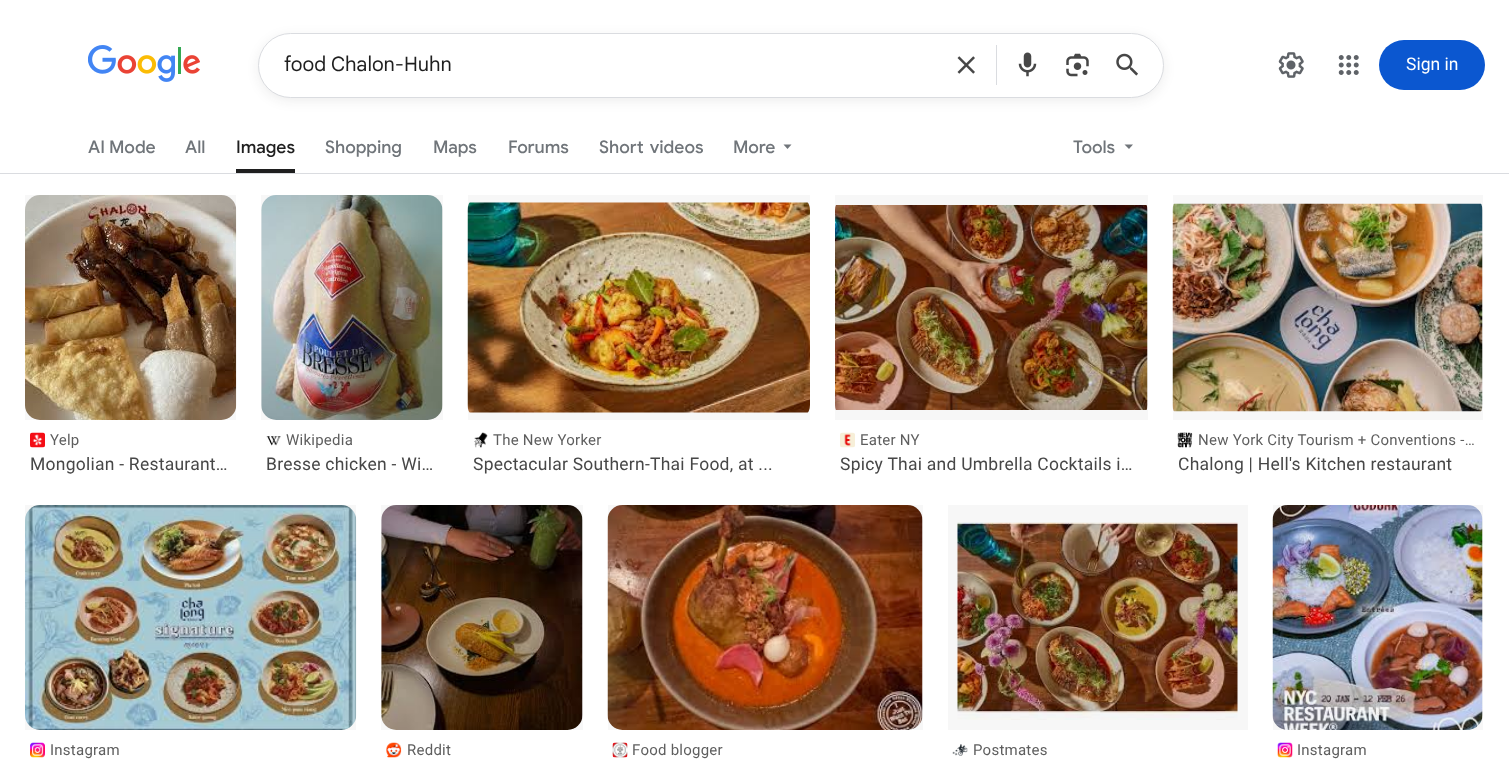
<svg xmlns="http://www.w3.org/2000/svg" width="1509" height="759">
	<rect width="100%" height="100%" fill="#FFFFFF" />
	<image x="88" y="45" width="112" height="37" href="assets/img1.png" />
	<rect x="258" y="36" width="906" height="65" rx="32.5" fill="#1F1F1F" fill-opacity="0.08" filter="blur(6px)" />
	<rect x="258.5" y="33.5" width="905" height="64" rx="32" fill="#FFFFFF" stroke="#DADCE0" />
	<text x="284" y="71" font-family="Google Sans" font-size="20" fill="#1F1F1F">food Chalon-Huhn</text>
	<image x="957" y="56" width="18" height="18" href="assets/img2.png" />
	<rect x="996" y="45" width="1" height="40" fill="#DADCE0" />
	<image x="1018" y="52" width="19" height="25" href="assets/img3.png" />
	<image x="1066" y="53" width="23" height="24" href="assets/img4.png" />
	<image x="1116" y="53" width="22" height="23" href="assets/img5.png" />
	<image x="1278" y="52" width="26" height="26" href="assets/img6.png" />
	<image x="1338" y="55" width="21" height="20" href="assets/img7.png" />
	<rect x="1379" y="40" width="106" height="50" rx="25" fill="#0B57D0" />
	<text x="1406" y="70" font-family="Roboto" font-size="17.5" fill="#FFFFFF">Sign in</text>
	<g font-family="Google Sans" font-size="17.5" font-weight="500" fill="#70757A">
		<text x="88" y="153">AI Mode</text>
		<text x="185" y="153">All</text>
	</g>
	<rect x="236" y="169" width="59" height="4" fill="#1F1F1F" />
	<text x="236" y="153" font-family="Google Sans" font-size="17.5" font-weight="500" fill="#1F1F1F">Images</text>
	<g font-family="Google Sans" font-size="17.5" font-weight="500" fill="#70757A">
		<text x="325" y="153">Shopping</text>
		<text x="433" y="153">Maps</text>
		<text x="508" y="153">Forums</text>
		<text x="599" y="153" word-spacing="2">Short videos</text>
		<text x="733" y="153">More</text>
	</g>
	<path d="M783.5 144.5L787.5 149L791.5 144.5Z" fill="#70757A" />
	<text x="1073" y="153" font-family="Google Sans" font-size="17.5" font-weight="500" fill="#70757A">Tools</text>
	<path d="M1124.5 144.5L1129 149L1133 144.5Z" fill="#70757A" />
	<rect x="0" y="173" width="1509" height="1" fill="#DADCE0" />
	<image x="25" y="195" width="212" height="225" href="assets/img8.png" />
	<rect x="25" y="195" width="211" height="225" fill="#000000" fill-opacity="0.03" />
	<image x="30" y="432" width="15" height="16" href="assets/img9.png" />
	<text x="50" y="445" font-family="Roboto" font-size="15" letter-spacing="0.25" fill="#5E5E5E">Yelp</text>
	<text x="30" y="470" font-family="Roboto" font-size="17.5" letter-spacing="0.25" fill="#474747">Mongolian - Restaurant…</text>
	<image x="261" y="195" width="182" height="225" href="assets/img10.png" />
	<rect x="261" y="195" width="182" height="225" fill="#000000" fill-opacity="0.03" />
	<image x="266" y="436" width="15" height="10" href="assets/img11.png" />
	<text x="286" y="445" font-family="Roboto" font-size="15" letter-spacing="0.25" fill="#5E5E5E">Wikipedia</text>
	<text x="266" y="470" font-family="Roboto" font-size="17.5" letter-spacing="0.25" fill="#474747">Bresse chicken - Wi…</text>
	<image x="467" y="202" width="343" height="211" href="assets/img12.png" />
	<rect x="468" y="195" width="342" height="225" fill="#000000" fill-opacity="0.03" />
	<image x="474" y="432" width="14" height="16" href="assets/img13.png" />
	<text x="493" y="445" font-family="Roboto" font-size="15" letter-spacing="0.25" fill="#5E5E5E">The New Yorker</text>
	<text x="473" y="470" font-family="Roboto" font-size="17.5" letter-spacing="0.25" fill="#474747">Spectacular Southern-Thai Food, at ...</text>
	<image x="835" y="205" width="313" height="205" href="assets/img14.png" />
	<rect x="835" y="195" width="313" height="225" fill="#000000" fill-opacity="0.03" />
	<image x="840" y="432" width="15" height="16" href="assets/img15.png" />
	<text x="860" y="445" font-family="Roboto" font-size="15" letter-spacing="0.25" fill="#5E5E5E">Eater NY</text>
	<text x="840" y="470" font-family="Roboto" font-size="17.5" letter-spacing="0.25" fill="#474747">Spicy Thai and Umbrella Cocktails i…</text>
	<image x="1172" y="203" width="311" height="209" href="assets/img16.png" />
	<rect x="1173" y="195" width="310" height="225" fill="#000000" fill-opacity="0.03" />
	<image x="1177" y="432" width="16" height="16" href="assets/img17.png" />
	<text x="1198" y="445" font-family="Roboto" font-size="15" letter-spacing="0.25" fill="#5E5E5E">New York City Tourism + Conventions -…</text>
	<text x="1178" y="470" font-family="Roboto" font-size="17.5" letter-spacing="0.25" fill="#474747">Chalong | Hell's Kitchen restaurant</text>
	<image x="25" y="505" width="332" height="225" href="assets/img18.png" />
	<rect x="25" y="505" width="331" height="225" fill="#000000" fill-opacity="0.03" />
	<image x="30" y="742" width="15" height="16" href="assets/img19.png" />
	<text x="50" y="755" font-family="Roboto" font-size="15" letter-spacing="0.25" fill="#5E5E5E">Instagram</text>
	<image x="381" y="505" width="202" height="225" href="assets/img20.png" />
	<rect x="381" y="505" width="202" height="225" fill="#000000" fill-opacity="0.03" />
	<image x="386" y="742" width="16" height="16" href="assets/img21.png" />
	<text x="407" y="755" font-family="Roboto" font-size="15" letter-spacing="0.25" fill="#5E5E5E">Reddit</text>
	<image x="607" y="505" width="316" height="225" href="assets/img22.png" />
	<rect x="608" y="505" width="315" height="225" fill="#000000" fill-opacity="0.03" />
	<image x="612" y="742" width="16" height="16" href="assets/img23.png" />
	<text x="632" y="755" font-family="Roboto" font-size="15" letter-spacing="0.25" fill="#5E5E5E">Food blogger</text>
	<image x="957" y="522" width="281" height="198" href="assets/img24.png" />
	<rect x="948" y="505" width="300" height="225" fill="#000000" fill-opacity="0.03" />
	<image x="952" y="744" width="16" height="12" href="assets/img25.png" />
	<text x="973" y="755" font-family="Roboto" font-size="15" letter-spacing="0.25" fill="#5E5E5E">Postmates</text>
	<image x="1272" y="505" width="211" height="225" href="assets/img26.png" />
	<rect x="1273" y="505" width="210" height="225" fill="#000000" fill-opacity="0.03" />
	<image x="1277" y="742" width="16" height="16" href="assets/img27.png" />
	<text x="1297" y="755" font-family="Roboto" font-size="15" letter-spacing="0.25" fill="#5E5E5E">Instagram</text>
</svg>
